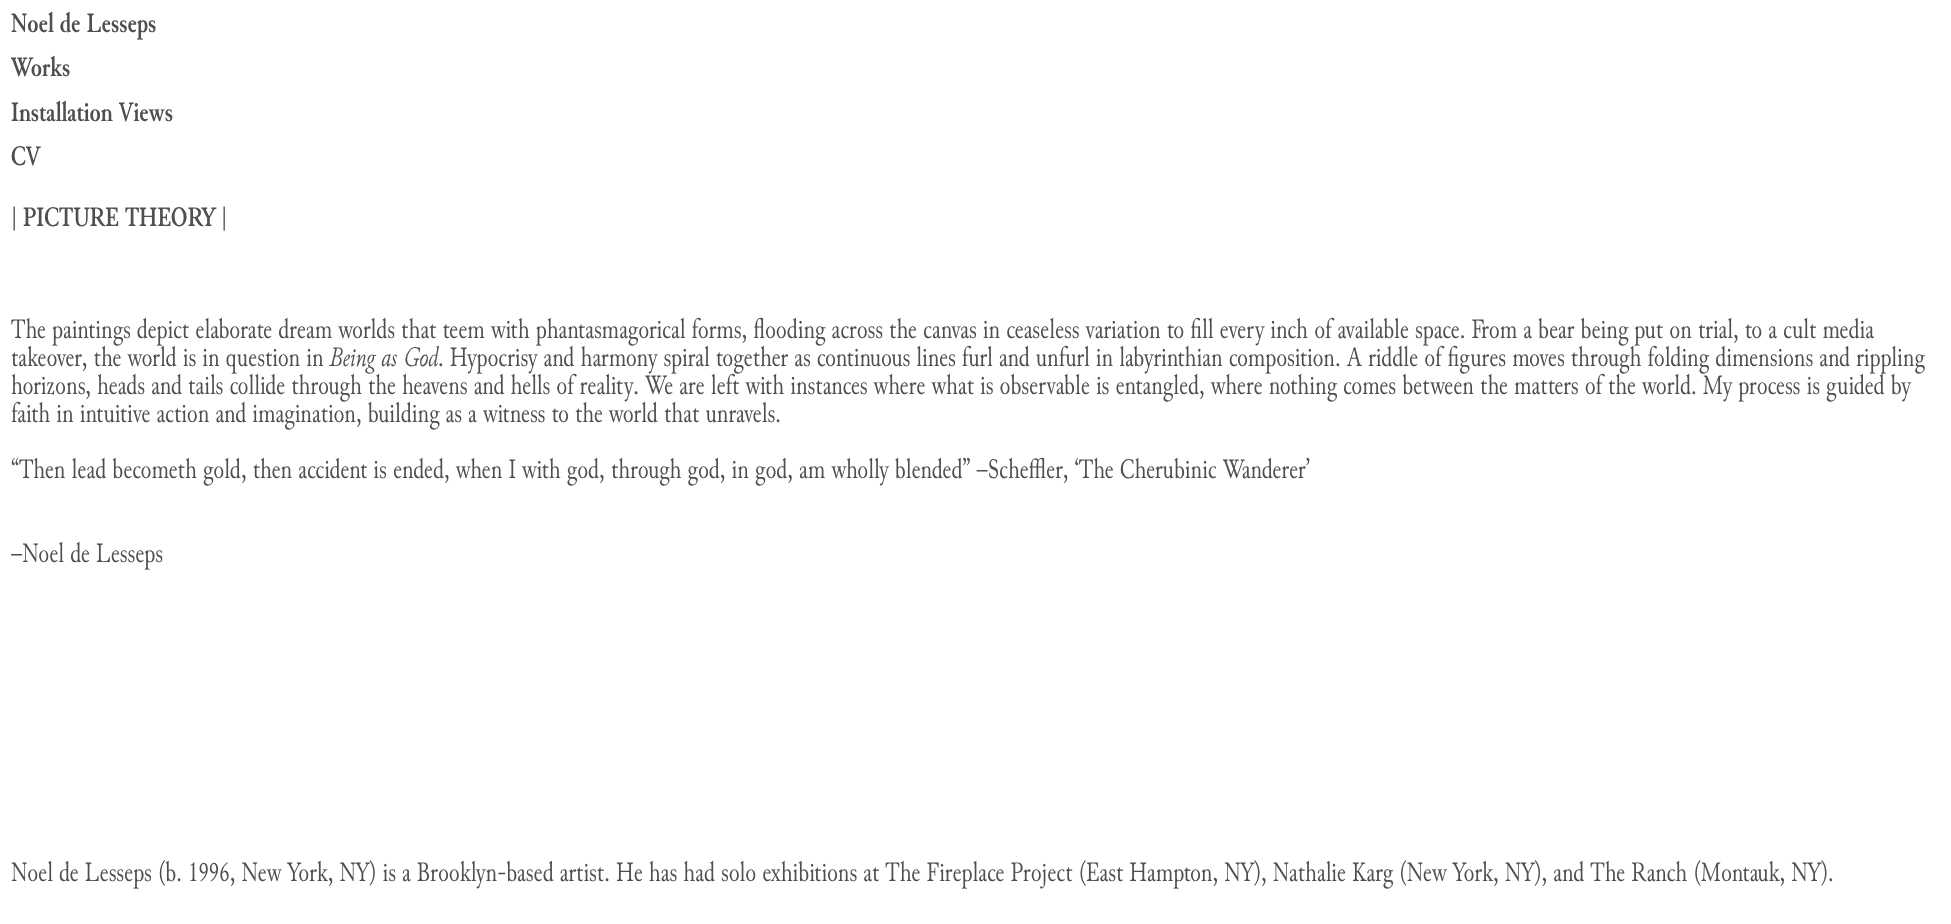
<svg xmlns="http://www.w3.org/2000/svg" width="1951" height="924">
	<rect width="100%" height="100%" fill="#FFFFFF" />
	<g font-family="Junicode" font-size="27.95" font-weight="700" fill="#524E4E">
		<text x="11" y="32">Noel de Lesseps</text>
		<text x="11" y="76">Works</text>
		<text x="11" y="121">Installation Views</text>
		<text x="11" y="165">CV</text>
	</g>
	<text x="11" y="226" font-family="Junicode" font-size="27.95" fill="#524E4E">|</text>
	<text x="23" y="226" font-family="Junicode" font-size="27.95" font-weight="700" fill="#524E4E">PICTURE THEORY</text>
	<g font-family="Junicode" font-size="27.95" fill="#524E4E">
		<text x="221" y="226">|</text>
		<text x="11" y="338">The paintings depict elaborate dream worlds that teem with phantasmagorical forms, flooding across the canvas in ceaseless variation to fill every inch of available space. From a bear being put on trial, to a cult media</text>
		<text x="11" y="366">takeover, the world is in question in</text>
	</g>
	<text x="329" y="366" font-family="Junicode" font-size="27.95" font-style="italic" fill="#524E4E">Being as God</text>
	<g font-family="Junicode" font-size="27.95" fill="#524E4E">
		<text x="438" y="366">. Hypocrisy and harmony spiral together as continuous lines furl and unfurl in labyrinthian composition. A riddle of figures moves through folding dimensions and rippling</text>
		<text x="11" y="394">horizons, heads and tails collide through the heavens and hells of reality. We are left with instances where what is observable is entangled, where nothing comes between the matters of the world. My process is guided by</text>
		<text x="11" y="422">faith in intuitive action and imagination, building as a witness to the world that unravels.</text>
		<text x="11" y="478">“Then lead becometh gold, then accident is ended, when I with god, through god, in god, am wholly blended” –Scheffler, ‘The Cherubinic Wanderer’</text>
		<text x="11" y="562">–Noel de Lesseps</text>
		<text x="11" y="881">Noel de Lesseps (b. 1996, New York, NY) is a Brooklyn-based artist. He has had solo exhibitions at The Fireplace Project (East Hampton, NY), Nathalie Karg (New York, NY), and The Ranch (Montauk, NY).</text>
	</g>
</svg>
